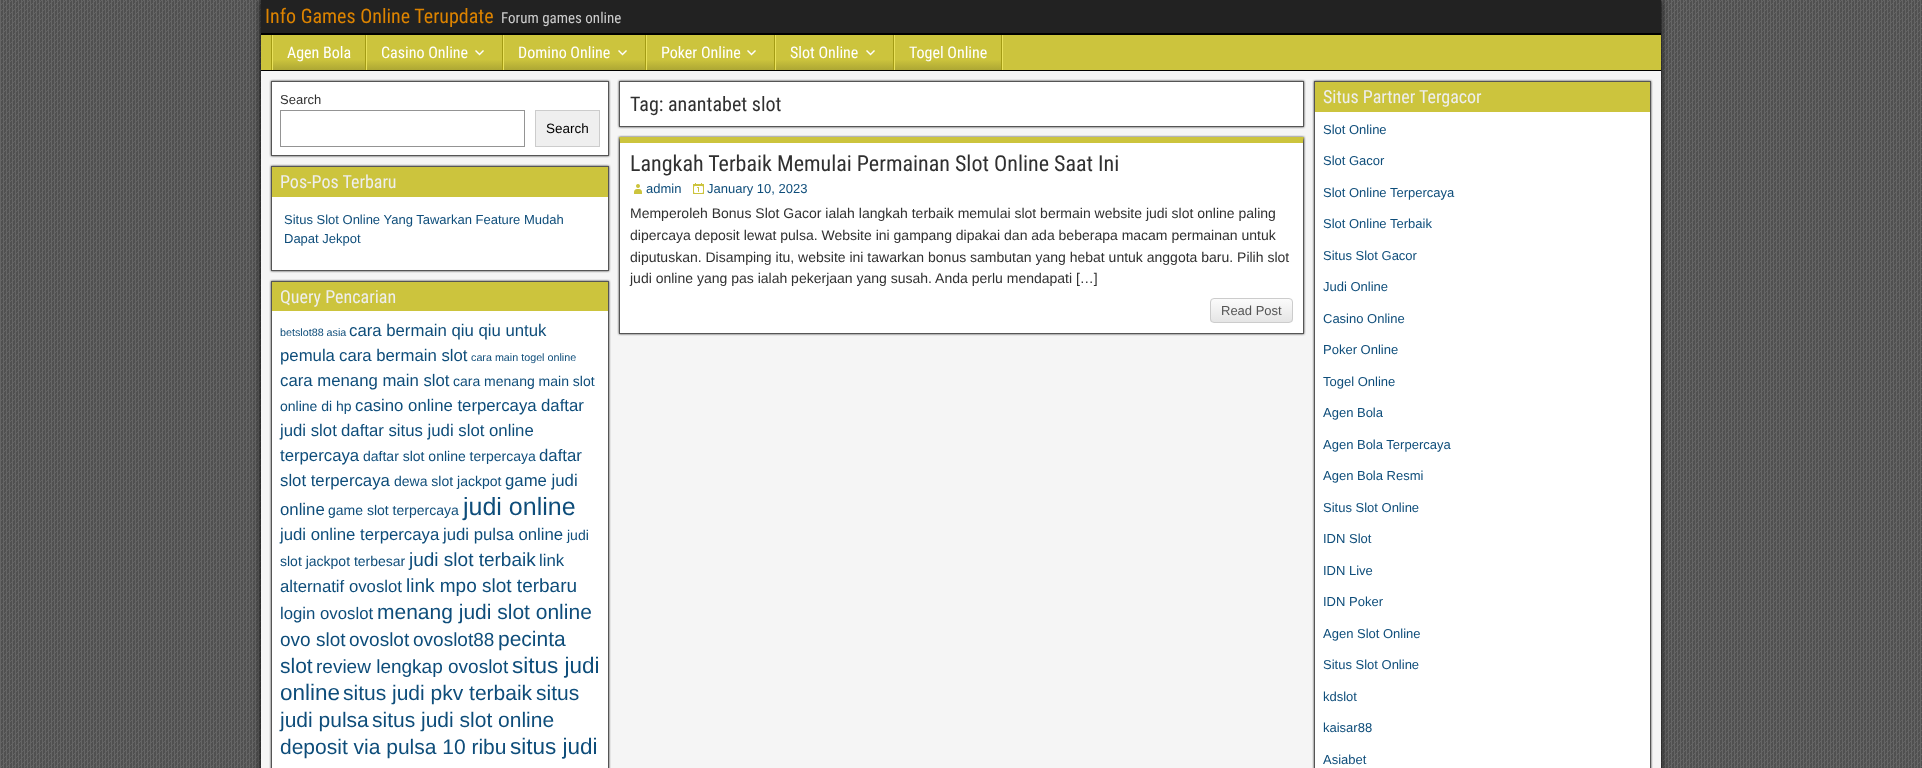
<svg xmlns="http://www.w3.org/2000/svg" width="1922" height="768">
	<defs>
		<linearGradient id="g1" gradientUnits="userSpaceOnUse" x1="319" y1="35" x2="319" y2="70"><stop offset="0.7" stop-color="#CCC43D" /><stop offset="1" stop-color="#ADA734" /></linearGradient>
		<linearGradient id="g2" gradientUnits="userSpaceOnUse" x1="435" y1="35" x2="435" y2="70"><stop offset="0.7" stop-color="#CCC43D" /><stop offset="1" stop-color="#ADA734" /></linearGradient>
		<linearGradient id="g3" gradientUnits="userSpaceOnUse" x1="575" y1="35" x2="575" y2="70"><stop offset="0.7" stop-color="#CCC43D" /><stop offset="1" stop-color="#ADA734" /></linearGradient>
		<linearGradient id="g4" gradientUnits="userSpaceOnUse" x1="711" y1="35" x2="711" y2="70"><stop offset="0.7" stop-color="#CCC43D" /><stop offset="1" stop-color="#ADA734" /></linearGradient>
		<linearGradient id="g5" gradientUnits="userSpaceOnUse" x1="835" y1="35" x2="835" y2="70"><stop offset="0.7" stop-color="#CCC43D" /><stop offset="1" stop-color="#ADA734" /></linearGradient>
		<linearGradient id="g6" gradientUnits="userSpaceOnUse" x1="948" y1="35" x2="948" y2="70"><stop offset="0.7" stop-color="#CCC43D" /><stop offset="1" stop-color="#ADA734" /></linearGradient>
		<clipPath id="clip1"><rect x="1210" y="298" width="83" height="25" rx="4" /></clipPath>
		<linearGradient id="g7" gradientUnits="userSpaceOnUse" x1="1252" y1="299" x2="1252" y2="322"><stop offset="0" stop-color="#FBFBFB" /><stop offset="1" stop-color="#E5E5E5" /></linearGradient>
	</defs>
	<rect width="100%" height="100%" fill="#505050" />
	<image x="0" y="0" width="1922" height="768" href="assets/img1.png" />
	<rect x="261" y="0" width="1400" height="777" fill="#000000" filter="blur(3px)" />
	<rect x="261" y="0" width="1400" height="33" fill="#222222" />
	<rect x="261" y="33" width="1400" height="2" fill="#000000" />
	<text x="265" y="23" font-family="Roboto Condensed" font-size="20" fill="#DC8300">Info Games Online Terupdate</text>
	<text x="501" y="23" font-family="Roboto Condensed" font-size="15" fill="#CCCCCC">Forum games online</text>
	<rect x="261" y="35" width="1400" height="35" fill="#CCC43D" />
	<rect x="261" y="70" width="1400" height="1" fill="#000000" />
	<rect x="1002" y="35" width="1" height="35" fill="#EAE25B" />
	<rect x="271" y="35" width="1" height="35" fill="#A49C15" />
	<rect x="273" y="60" width="92" height="10" fill="url(#g1)" />
	<rect x="365" y="35" width="1" height="35" fill="#A49C15" />
	<rect x="272" y="35" width="1" height="35" fill="#EAE25B" />
	<text x="287" y="58" font-family="Roboto Condensed" font-size="16" fill="#FFFFFF">Agen Bola</text>
	<rect x="367" y="60" width="135" height="10" fill="url(#g2)" />
	<rect x="502" y="35" width="1" height="35" fill="#A49C15" />
	<rect x="366" y="35" width="1" height="35" fill="#EAE25B" />
	<text x="381" y="58" font-family="Roboto Condensed" font-size="16" fill="#FFFFFF">Casino Online</text>
	<image x="475" y="50" width="9" height="6" href="assets/img2.png" />
	<rect x="504" y="60" width="141" height="10" fill="url(#g3)" />
	<rect x="645" y="35" width="1" height="35" fill="#A49C15" />
	<rect x="503" y="35" width="1" height="35" fill="#EAE25B" />
	<text x="518" y="58" font-family="Roboto Condensed" font-size="16" fill="#FFFFFF">Domino Online</text>
	<image x="618" y="50" width="9" height="6" href="assets/img2.png" />
	<rect x="647" y="60" width="127" height="10" fill="url(#g4)" />
	<rect x="774" y="35" width="1" height="35" fill="#A49C15" />
	<rect x="646" y="35" width="1" height="35" fill="#EAE25B" />
	<text x="661" y="58" font-family="Roboto Condensed" font-size="16" fill="#FFFFFF">Poker Online</text>
	<image x="747" y="50" width="9" height="6" href="assets/img2.png" />
	<rect x="776" y="60" width="117" height="10" fill="url(#g5)" />
	<rect x="893" y="35" width="1" height="35" fill="#A49C15" />
	<rect x="775" y="35" width="1" height="35" fill="#EAE25B" />
	<text x="790" y="58" font-family="Roboto Condensed" font-size="16" fill="#FFFFFF">Slot Online</text>
	<image x="866" y="50" width="9" height="6" href="assets/img2.png" />
	<rect x="895" y="60" width="106" height="10" fill="url(#g6)" />
	<rect x="1001" y="35" width="1" height="35" fill="#A49C15" />
	<rect x="894" y="35" width="1" height="35" fill="#EAE25B" />
	<text x="909" y="58" font-family="Roboto Condensed" font-size="16" fill="#FFFFFF">Togel Online</text>
	<rect x="261" y="71" width="1400" height="697" fill="#F5F5F5" />
	<rect x="271" y="81" width="338" height="75" fill="#333333" filter="blur(1px)" />
	<rect x="271.5" y="81.5" width="337" height="74" fill="#FFFFFF" stroke="#555555" />
	<text x="280" y="104" font-family="Liberation Sans" font-size="13" fill="#303030">Search</text>
	<rect x="280.5" y="110.5" width="244" height="36" fill="none" stroke="#949494" />
	<rect x="535.5" y="110.5" width="64" height="36" fill="#EFEFEF" stroke="#CCCCCC" />
	<text x="546" y="133" font-family="Liberation Sans" font-size="13.5" fill="#000000">Search</text>
	<rect x="271" y="166" width="338" height="105" fill="#333333" filter="blur(1px)" />
	<rect x="272" y="197" width="336" height="73" fill="#FFFFFF" />
	<rect x="271.5" y="166.5" width="337" height="104" fill="none" stroke="#555555" />
	<rect x="272" y="167" width="336" height="30" fill="#CCC43D" />
	<text x="280" y="188" font-family="Roboto Condensed" font-size="18" fill="#EEEEEE">Pos-Pos Terbaru</text>
	<g font-family="Liberation Sans" font-size="13" fill="#0E4D7A">
		<text x="284" y="224">Situs Slot Online Yang Tawarkan Feature Mudah</text>
		<text x="284" y="243">Dapat Jekpot</text>
	</g>
	<rect x="271" y="281" width="338" height="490" fill="#333333" filter="blur(1px)" />
	<rect x="272" y="311" width="336" height="457" fill="#FFFFFF" />
	<rect x="271.5" y="281.5" width="337" height="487" fill="none" stroke="#555555" />
	<rect x="272" y="282" width="336" height="29" fill="#CCC43D" />
	<text x="280" y="303" font-family="Roboto Condensed" font-size="18" fill="#EEEEEE">Query Pencarian</text>
	<text x="280" y="336" font-family="Liberation Sans" font-size="10.75" fill="#0E4D7A">betslot88 asia</text>
	<g font-family="Liberation Sans" font-size="16.75" fill="#0E4D7A">
		<text x="349" y="336">cara bermain qiu qiu untuk</text>
		<text x="280" y="361">pemula</text>
		<text x="339" y="361">cara bermain slot</text>
	</g>
	<text x="471" y="361" font-family="Liberation Sans" font-size="10.75" fill="#0E4D7A">cara main togel online</text>
	<text x="280" y="386" font-family="Liberation Sans" font-size="16.75" fill="#0E4D7A">cara menang main slot</text>
	<g font-family="Liberation Sans" font-size="14" fill="#0E4D7A">
		<text x="453" y="386">cara menang main slot</text>
		<text x="280" y="411">online di hp</text>
	</g>
	<g font-family="Liberation Sans" font-size="16.75" fill="#0E4D7A">
		<text x="355" y="411">casino online terpercaya</text>
		<text x="541" y="411">daftar</text>
		<text x="280" y="436">judi slot</text>
		<text x="341" y="436">daftar situs judi slot online</text>
		<text x="280" y="461">terpercaya</text>
	</g>
	<text x="363" y="461" font-family="Liberation Sans" font-size="14" fill="#0E4D7A">daftar slot online terpercaya</text>
	<g font-family="Liberation Sans" font-size="16.75" fill="#0E4D7A">
		<text x="539" y="461">daftar</text>
		<text x="280" y="486">slot terpercaya</text>
	</g>
	<text x="394" y="486" font-family="Liberation Sans" font-size="14" fill="#0E4D7A">dewa slot jackpot</text>
	<g font-family="Liberation Sans" font-size="16.75" fill="#0E4D7A">
		<text x="505" y="486">game judi</text>
		<text x="280" y="515">online</text>
	</g>
	<text x="328" y="515" font-family="Liberation Sans" font-size="14" fill="#0E4D7A">game slot terpercaya</text>
	<text x="463" y="515" font-family="Liberation Sans" font-size="25" fill="#0E4D7A">judi online</text>
	<g font-family="Liberation Sans" font-size="16.75" fill="#0E4D7A">
		<text x="280" y="540">judi online terpercaya</text>
		<text x="443" y="540">judi pulsa online</text>
	</g>
	<g font-family="Liberation Sans" font-size="14" fill="#0E4D7A">
		<text x="567" y="540">judi</text>
		<text x="280" y="566">slot jackpot terbesar</text>
	</g>
	<text x="409" y="566" font-family="Liberation Sans" font-size="19" fill="#0E4D7A">judi slot terbaik</text>
	<g font-family="Liberation Sans" font-size="16.75" fill="#0E4D7A">
		<text x="539" y="566">link</text>
		<text x="280" y="592">alternatif ovoslot</text>
	</g>
	<text x="406" y="592" font-family="Liberation Sans" font-size="19" fill="#0E4D7A">link mpo slot terbaru</text>
	<text x="280" y="619" font-family="Liberation Sans" font-size="16.75" fill="#0E4D7A">login ovoslot</text>
	<text x="377" y="619" font-family="Liberation Sans" font-size="21" fill="#0E4D7A">menang judi slot online</text>
	<g font-family="Liberation Sans" font-size="19" fill="#0E4D7A">
		<text x="280" y="646">ovo slot</text>
		<text x="349" y="646">ovoslot</text>
		<text x="413" y="646">ovoslot88</text>
	</g>
	<g font-family="Liberation Sans" font-size="21" fill="#0E4D7A">
		<text x="498" y="646">pecinta</text>
		<text x="280" y="673">slot</text>
	</g>
	<text x="316" y="673" font-family="Liberation Sans" font-size="19" fill="#0E4D7A">review lengkap ovoslot</text>
	<g font-family="Liberation Sans" font-size="22.5" fill="#0E4D7A">
		<text x="512" y="673">situs judi</text>
		<text x="280" y="700">online</text>
	</g>
	<g font-family="Liberation Sans" font-size="21" fill="#0E4D7A">
		<text x="343" y="700">situs judi pkv terbaik</text>
		<text x="536" y="700">situs</text>
		<text x="280" y="727">judi pulsa</text>
		<text x="372" y="727">situs judi slot online</text>
		<text x="280" y="754">deposit via pulsa 10 ribu</text>
	</g>
	<text x="510" y="754" font-family="Liberation Sans" font-size="22.5" fill="#0E4D7A">situs judi</text>
	<rect x="619" y="81" width="685" height="46" fill="#333333" filter="blur(1px)" />
	<rect x="619.5" y="81.5" width="684" height="45" fill="#FFFFFF" stroke="#555555" />
	<text x="630" y="111" font-family="Roboto Condensed" font-size="20" fill="#303030">Tag: anantabet slot</text>
	<rect x="619" y="137" width="685" height="197" fill="#333333" filter="blur(1px)" />
	<rect x="620" y="143" width="683" height="190" fill="#FFFFFF" />
	<path d="M619 137H1304L1303 143H620Z" fill="#CCC43D" />
	<path d="M1304 137V334L1303 333V143Z" fill="#555555" />
	<rect x="619" y="333" width="685" height="1" fill="#555555" />
	<path d="M619 334V137L620 143V333Z" fill="#555555" />
	<text x="630" y="171" font-family="Roboto Condensed" font-size="22" fill="#303030">Langkah Terbaik Memulai Permainan Slot Online Saat Ini</text>
	<image x="634" y="184" width="8" height="10" href="assets/img3.png" />
	<text x="646" y="193" font-family="Liberation Sans" font-size="13" fill="#0E4D7A">admin</text>
	<image x="693" y="183" width="11" height="11" href="assets/img4.png" />
	<text x="707" y="193" font-family="Liberation Sans" font-size="13" fill="#0E4D7A">January 10, 2023</text>
	<g font-family="Arimo" font-size="14" fill="#303030">
		<text x="630" y="218">Memperoleh Bonus Slot Gacor ialah langkah terbaik memulai slot bermain website judi slot online paling</text>
		<text x="630" y="240">dipercaya deposit lewat pulsa. Website ini gampang dipakai dan ada beberapa macam permainan untuk</text>
		<text x="630" y="262">diputuskan. Disamping itu, website ini tawarkan bonus sambutan yang hebat untuk anggota baru. Pilih slot</text>
		<text x="630" y="283">judi online yang pas ialah pekerjaan yang susah. Anda perlu mendapati […]</text>
	</g>
	<g clip-path="url(#clip1)">
		<rect x="1210" y="299" width="83" height="23" fill="url(#g7)" />
	</g>
	<rect x="1210.5" y="298.5" width="82" height="24" rx="3.5" fill="none" stroke="#CCCCCC" />
	<text x="1221" y="315" font-family="Liberation Sans" font-size="13" fill="#555555">Read Post</text>
	<rect x="1314" y="81" width="337" height="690" fill="#333333" filter="blur(1px)" />
	<rect x="1315" y="112" width="335" height="656" fill="#FFFFFF" />
	<rect x="1314.5" y="81.5" width="336" height="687" fill="none" stroke="#555555" />
	<rect x="1315" y="82" width="335" height="30" fill="#CCC43D" />
	<text x="1323" y="103" font-family="Roboto Condensed" font-size="18" fill="#EEEEEE">Situs Partner Tergacor</text>
	<g font-family="Liberation Sans" font-size="13" fill="#0E4D7A">
		<text x="1323" y="134">Slot Online</text>
		<text x="1323" y="165">Slot Gacor</text>
		<text x="1323" y="197">Slot Online Terpercaya</text>
		<text x="1323" y="228">Slot Online Terbaik</text>
		<text x="1323" y="260">Situs Slot Gacor</text>
		<text x="1323" y="291">Judi Online</text>
		<text x="1323" y="323">Casino Online</text>
		<text x="1323" y="354">Poker Online</text>
		<text x="1323" y="386">Togel Online</text>
		<text x="1323" y="417">Agen Bola</text>
		<text x="1323" y="449">Agen Bola Terpercaya</text>
		<text x="1323" y="480">Agen Bola Resmi</text>
		<text x="1323" y="512">Situs Slot Online</text>
		<text x="1323" y="543">IDN Slot</text>
		<text x="1323" y="575">IDN Live</text>
		<text x="1323" y="606">IDN Poker</text>
		<text x="1323" y="638">Agen Slot Online</text>
		<text x="1323" y="669">Situs Slot Online</text>
		<text x="1323" y="701">kdslot</text>
		<text x="1323" y="732">kaisar88</text>
		<text x="1323" y="764">Asiabet</text>
	</g>
</svg>
